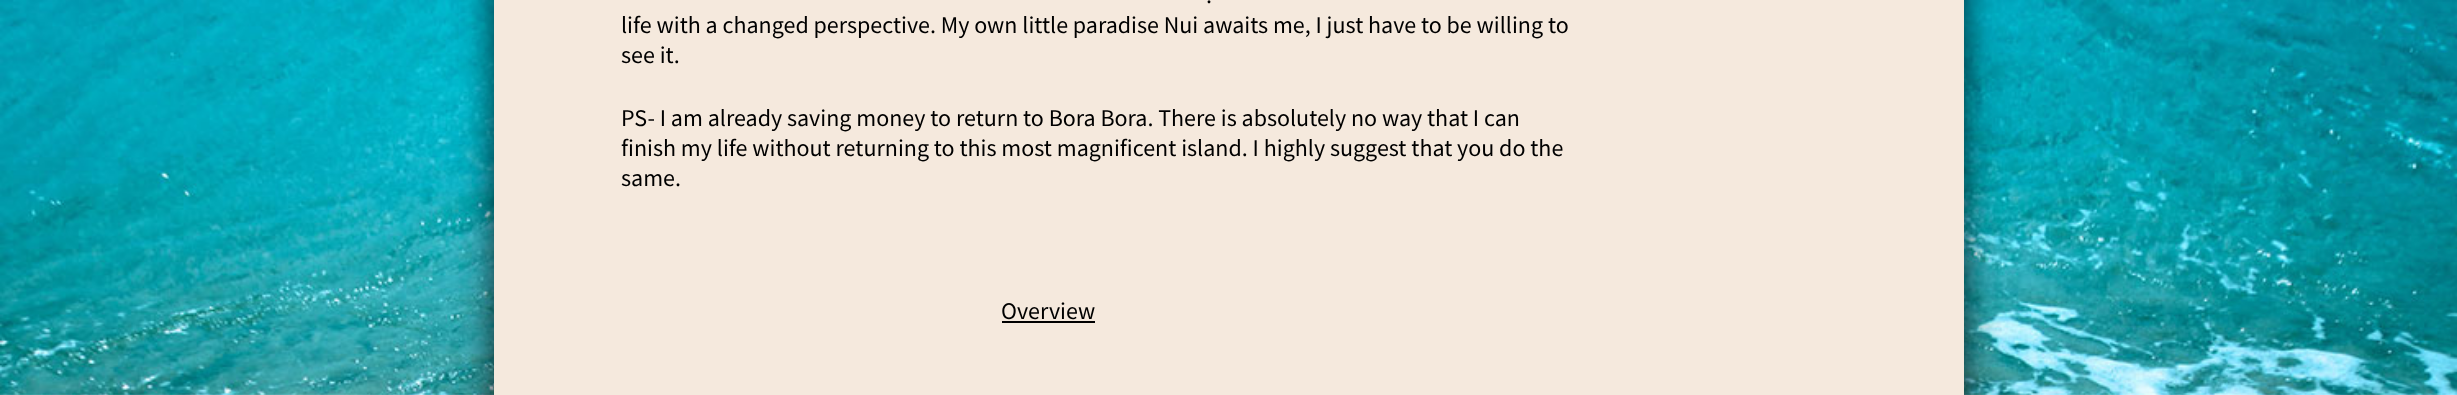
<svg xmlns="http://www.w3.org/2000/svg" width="2457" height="395">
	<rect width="100%" height="100%" fill="#FFFFFF" />
	<image x="0" y="0" width="2457" height="395" href="assets/img1.png" />
	<rect x="494" y="-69" width="1470" height="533" rx="15" fill="#000000" fill-opacity="0.8" filter="blur(18px)" />
	<rect x="494" y="0" width="1470" height="395" fill="#F5E9DD" />
	<g font-family="Source Sans Pro" font-size="24" fill="#000000">
		<text x="1206" y="3">.</text>
		<text x="621" y="33">life with a changed perspective. My own little paradise Nui awaits me, I just have to be willing to</text>
		<text x="621" y="63">see it.</text>
		<text x="621" y="126">PS- I am already saving money to return to Bora Bora. There is absolutely no way that I can</text>
		<text x="621" y="156">finish my life without returning to this most magnificent island. I highly suggest that you do the</text>
		<text x="621" y="186">same.</text>
		<text x="1001" y="319">Overview</text>
	</g>
	<rect x="1002" y="321" width="93" height="2" fill="#000000" />
</svg>
